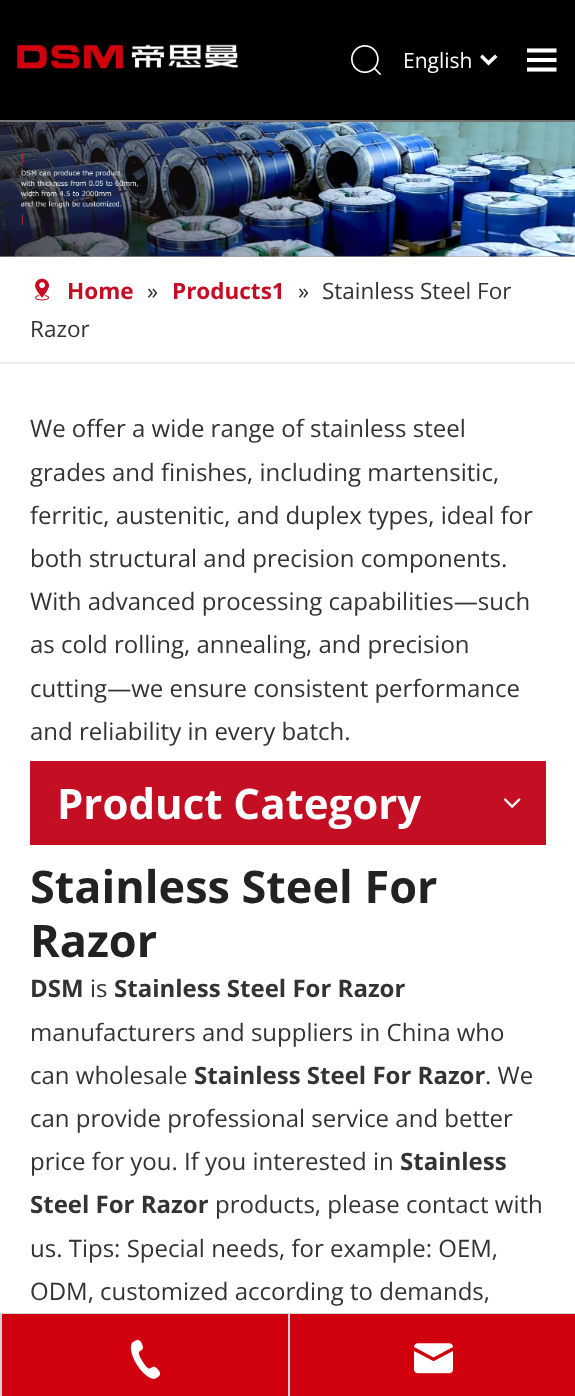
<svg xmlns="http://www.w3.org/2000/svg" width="575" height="1396">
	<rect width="100%" height="100%" fill="#FFFFFF" />
	<rect x="0" y="0" width="575" height="120" fill="#000000" />
	<rect x="0" y="120" width="575" height="2" fill="#737373" />
	<image x="17" y="44" width="221" height="25" href="assets/img1.png" />
	<image x="351" y="45" width="30" height="30" href="assets/img2.png" />
	<text x="403" y="68" font-family="Open Sans" font-size="21" fill="#FFFFFF">English</text>
	<path d="M480 57L488.5 65.5L497.5 57L495 54.5L488.5 60.5L482.5 54.5Z" fill="#FFFFFF" />
	<image x="527" y="48" width="30" height="24" href="assets/img3.png" />
	<rect x="0" y="256" width="575" height="1" fill="#AAAAAA" />
	<image x="0" y="122" width="575" height="135" href="assets/img4.png" />
	<rect x="0" y="362" width="575" height="2" fill="#EEEEEE" />
	<image x="35" y="278" width="15" height="23" href="assets/img5.png" />
	<text x="67" y="299" font-family="Open Sans" font-size="22.5" font-weight="700" fill="#C30E23">Home</text>
	<text x="147" y="299" font-family="Open Sans" font-size="22.5" fill="#333333">»</text>
	<text x="172" y="299" font-family="Open Sans" font-size="22.5" font-weight="700" fill="#C30E23">Products1</text>
	<g font-family="Open Sans" font-size="22.5" fill="#333333">
		<text x="298" y="299">»</text>
		<text x="322" y="299">Stainless Steel For</text>
		<text x="30" y="337">Razor</text>
	</g>
	<g font-family="Open Sans" font-size="24" fill="#333333">
		<text x="30" y="437">We offer a wide range of stainless steel</text>
		<text x="30" y="481">grades and finishes, including martensitic,</text>
		<text x="30" y="524">ferritic, austenitic, and duplex types, ideal for</text>
		<text x="30" y="567">both structural and precision components.</text>
		<text x="30" y="610">With advanced processing capabilities—such</text>
		<text x="30" y="653">as cold rolling, annealing, and precision</text>
		<text x="30" y="697">cutting—we ensure consistent performance</text>
		<text x="30" y="740">and reliability in every batch.</text>
	</g>
	<rect x="30" y="761" width="516" height="84" fill="#C30E23" />
	<text x="57" y="819" font-family="Open Sans" font-size="42" font-weight="700" fill="#FFFFFF">Product Category</text>
	<image x="503" y="798" width="18" height="10" href="assets/img6.png" />
	<g font-family="Open Sans" font-size="45" font-weight="700" fill="#222222">
		<text x="30" y="903">Stainless Steel For</text>
		<text x="30" y="957">Razor</text>
	</g>
	<text x="30" y="997" font-family="Open Sans" font-size="24" font-weight="700" fill="#333333">DSM</text>
	<text x="90" y="997" font-family="Open Sans" font-size="24" fill="#333333">is</text>
	<text x="114" y="997" font-family="Open Sans" font-size="24" font-weight="700" fill="#333333">Stainless Steel For Razor</text>
	<g font-family="Open Sans" font-size="24" fill="#333333">
		<text x="30" y="1041">manufacturers and suppliers in China who</text>
		<text x="30" y="1084">can wholesale</text>
	</g>
	<text x="194" y="1084" font-family="Open Sans" font-size="24" font-weight="700" fill="#333333">Stainless Steel For Razor</text>
	<g font-family="Open Sans" font-size="24" fill="#333333">
		<text x="485" y="1084">. We</text>
		<text x="30" y="1127">can provide professional service and better</text>
		<text x="30" y="1170">price for you. If you interested in</text>
	</g>
	<g font-family="Open Sans" font-size="24" font-weight="700" fill="#333333">
		<text x="400" y="1170">Stainless</text>
		<text x="30" y="1213">Steel For Razor</text>
	</g>
	<g font-family="Open Sans" font-size="24" fill="#333333">
		<text x="215" y="1213">products, please contact with</text>
		<text x="30" y="1257">us. Tips: Special needs, for example: OEM,</text>
		<text x="30" y="1300">ODM, customized according to demands,</text>
	</g>
	<rect x="0" y="1313" width="575" height="1" fill="#D3D3D3" />
	<rect x="0" y="1314" width="2" height="82" fill="#D3D3D3" />
	<rect x="2" y="1314" width="286" height="82" fill="#D0000E" />
	<image x="130" y="1339" width="31" height="40" href="assets/img7.png" />
	<rect x="288" y="1314" width="2" height="82" fill="#D3D3D3" />
	<rect x="290" y="1314" width="285" height="82" fill="#D0000E" />
	<image x="414" y="1343" width="39" height="31" href="assets/img8.png" />
</svg>
